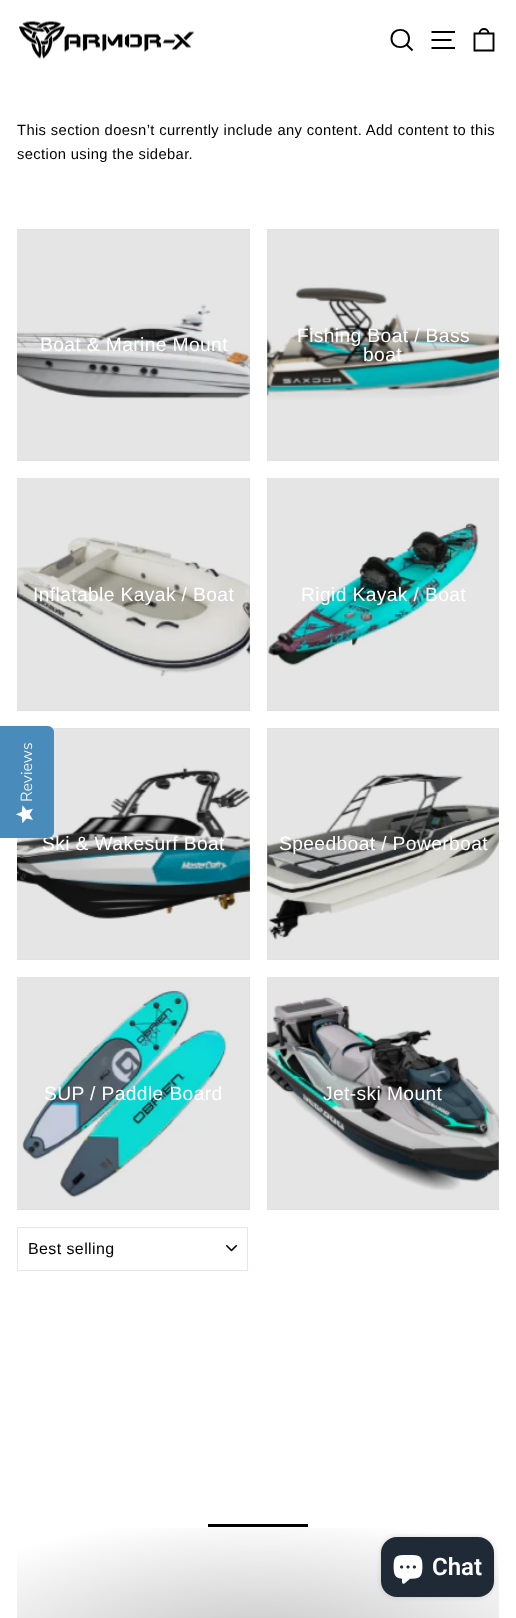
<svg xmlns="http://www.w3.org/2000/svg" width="516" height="1618">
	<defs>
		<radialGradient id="g1" gradientUnits="userSpaceOnUse" cx="0" cy="0" r="1" gradientTransform="matrix(624 0 0 237 258 1657)"><stop offset="0" stop-color="#000000" stop-opacity="0.24" /><stop offset="0.6" stop-color="#000000" stop-opacity="0" /></radialGradient>
	</defs>
	<rect width="100%" height="100%" fill="#FFFFFF" />
	<image x="19" y="21" width="175" height="38" href="assets/img1.png" />
	<path d="M409 38.5C409 50 391.5 50 391.5 38.5C391.5 27 409 27 409 38.5ZM412.5 50.5L406.5 44.5" fill="none" stroke="#000000" stroke-width="1.9" />
	<path d="M431.5 32H455M431.5 40H451.5M431.5 48H455" fill="none" stroke="#000000" stroke-width="1.9" />
	<path d="M474.5 33.5H493.5V50.5H474.5ZM479.5 33.5C479.5 27.5 488.5 27.5 488.5 33.5" fill="none" stroke="#000000" stroke-width="1.9" />
	<g font-family="Arimo" font-size="14.75" letter-spacing="0.37" fill="#000000">
		<text x="17" y="135">This section doesn’t currently include any content. Add content to this</text>
		<text x="17" y="159">section using the sidebar.</text>
	</g>
	<rect x="17" y="229" width="233" height="232" fill="#CECECE" />
	<image x="17" y="229" width="233" height="232" href="assets/img2.png" />
	<text x="40" y="351" font-family="Arimo" font-size="19.25" letter-spacing="0.37" fill="#FFFFFF">Boat &amp; Marine Mount</text>
	<rect x="267" y="229" width="232" height="232" fill="#CECECE" />
	<image x="267" y="229" width="232" height="232" href="assets/img3.png" />
	<g font-family="Arimo" font-size="19.25" letter-spacing="0.37" fill="#FFFFFF">
		<text x="297" y="342">Fishing Boat / Bass</text>
		<text x="363" y="361">boat</text>
	</g>
	<rect x="17" y="478" width="233" height="233" fill="#CECECE" />
	<image x="17" y="478" width="233" height="233" href="assets/img4.png" />
	<text x="33" y="601" font-family="Arimo" font-size="19.25" letter-spacing="0.37" fill="#FFFFFF">Inflatable Kayak / Boat</text>
	<rect x="267" y="478" width="232" height="233" fill="#CECECE" />
	<image x="267" y="478" width="232" height="233" href="assets/img5.png" />
	<text x="301" y="601" font-family="Arimo" font-size="19.25" letter-spacing="0.37" fill="#FFFFFF">Rigid Kayak / Boat</text>
	<rect x="17" y="728" width="233" height="232" fill="#CECECE" />
	<image x="17" y="728" width="233" height="232" href="assets/img6.png" />
	<text x="42" y="850" font-family="Arimo" font-size="19.25" letter-spacing="0.37" fill="#FFFFFF">Ski &amp; Wakesurf Boat</text>
	<rect x="267" y="728" width="232" height="232" fill="#CECECE" />
	<image x="267" y="728" width="232" height="232" href="assets/img7.png" />
	<text x="279" y="850" font-family="Arimo" font-size="19.25" letter-spacing="0.37" fill="#FFFFFF">Speedboat / Powerboat</text>
	<rect x="17" y="977" width="233" height="233" fill="#CECECE" />
	<image x="17" y="977" width="233" height="233" href="assets/img8.png" />
	<text x="44" y="1100" font-family="Arimo" font-size="19.25" letter-spacing="0.37" fill="#FFFFFF">SUP / Paddle Board</text>
	<rect x="267" y="977" width="232" height="233" fill="#CECECE" />
	<image x="267" y="977" width="232" height="233" href="assets/img9.png" />
	<text x="323" y="1100" font-family="Arimo" font-size="19.25" letter-spacing="0.37" fill="#FFFFFF">Jet-ski Mount</text>
	<image x="226" y="1245" width="11" height="7" href="assets/img10.png" />
	<rect x="17.5" y="1227.5" width="230" height="43" fill="none" stroke="#E1E8E8" />
	<text x="28" y="1254" font-family="Arimo" font-size="16" letter-spacing="0.4" fill="#000000">Best selling</text>
	<rect x="208" y="1524" width="100" height="3" fill="#000000" />
	<rect x="17" y="1528" width="482" height="90" fill="url(#g1)" />
	<path d="M0 838V726H48C51 726 54 729 54 732V832C54 835 51 838 48 838Z" fill="#498CBC" />
	<text x="32" y="802" transform="rotate(-90 32 802)" font-family="Nunito Sans" font-size="16" font-weight="300" fill="#FFFFFF">Reviews</text>
	<image x="16" y="805" width="17" height="18" href="assets/img11.png" />
	<rect x="381" y="1537" width="113" height="60" rx="16" fill="#000000" fill-opacity="0.15" filter="blur(2.5px)" />
	<rect x="381" y="1537" width="113" height="60" rx="16" fill="#202A36" />
	<image x="393" y="1555" width="30" height="29" href="assets/img12.png" />
	<text x="432" y="1575" font-family="Roboto" font-size="24" font-weight="600" fill="#FFFFFF">Chat</text>
</svg>
